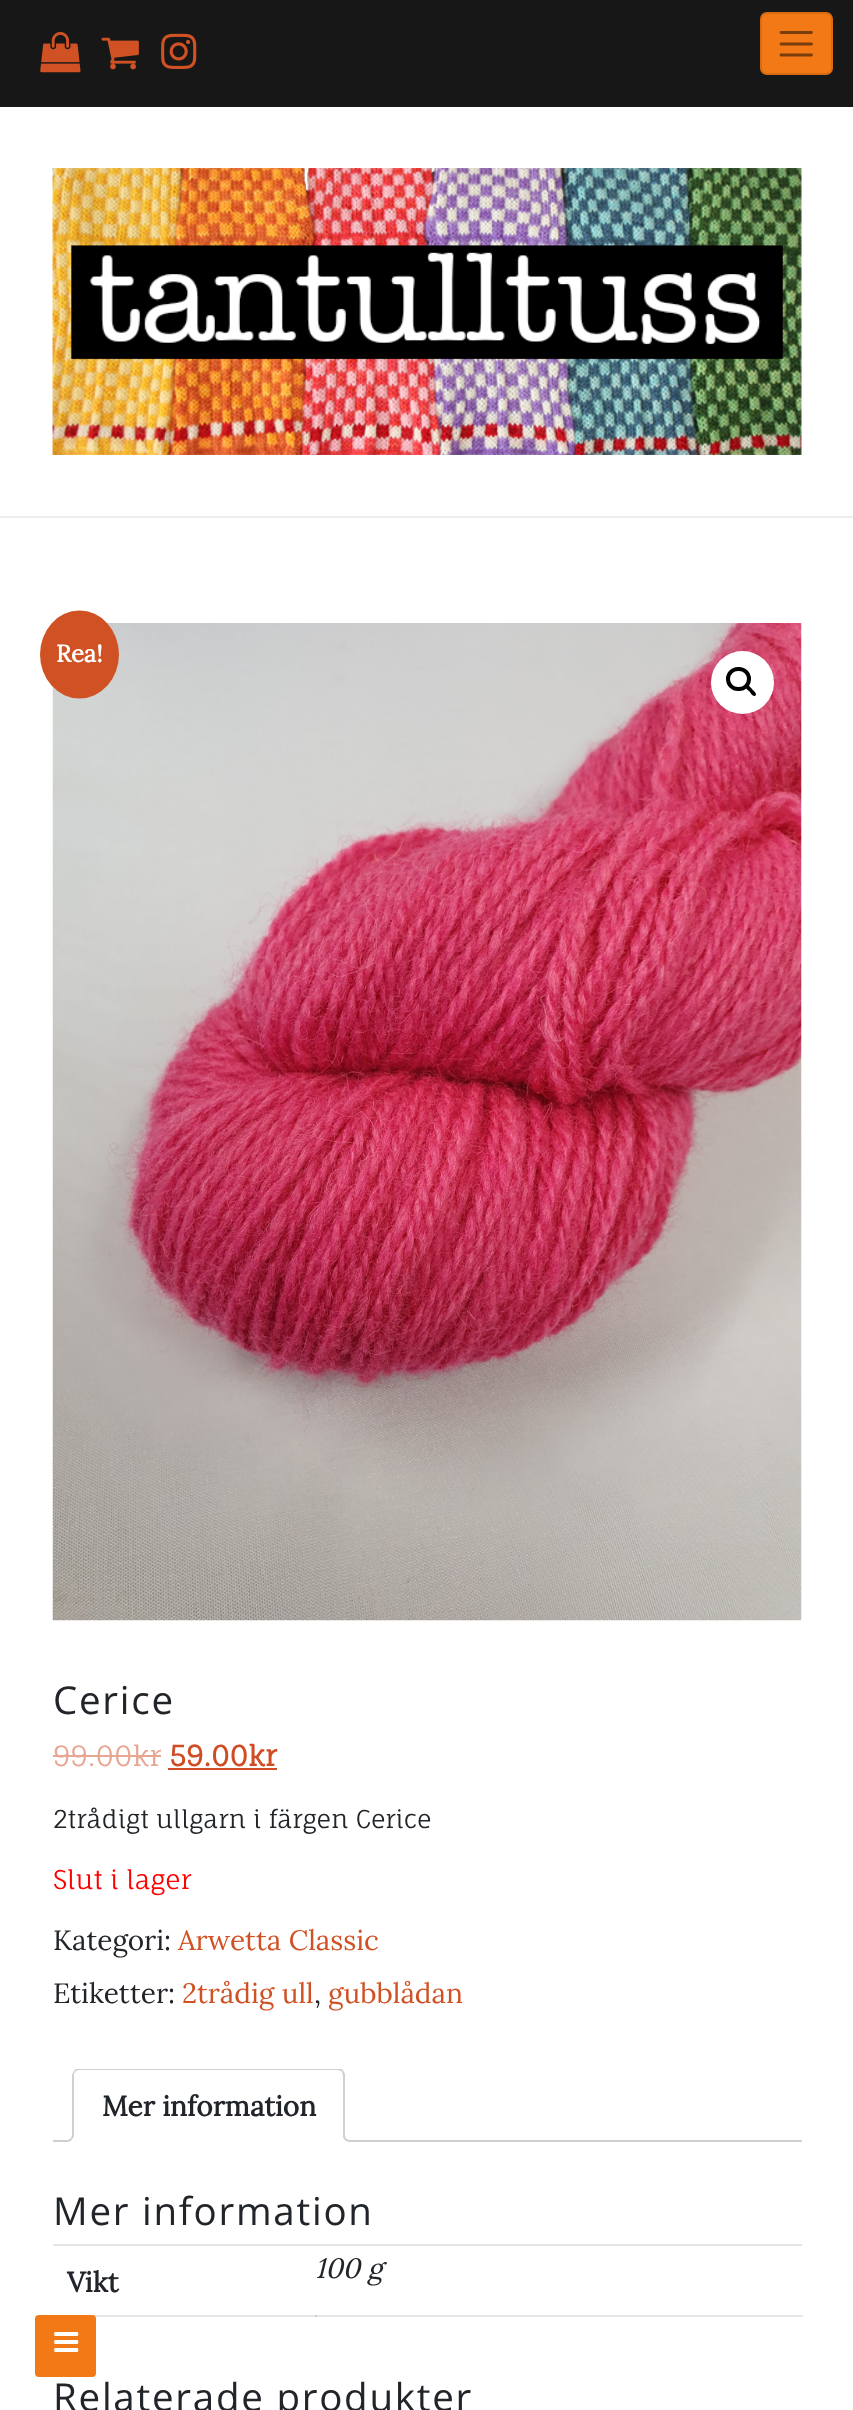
<svg xmlns="http://www.w3.org/2000/svg" width="853" height="2410">
	<defs>
		<clipPath id="clip1"><rect x="53" y="2069" width="749" height="73" /></clipPath>
	</defs>
	<rect width="100%" height="100%" fill="#FFFFFF" />
	<rect x="92" y="2315" width="711" height="2" fill="#E6E6E6" />
	<rect x="0" y="0" width="853" height="107" fill="#171717" />
	<image x="40" y="32" width="41" height="41" href="assets/img1.png" />
	<image x="101" y="37" width="38" height="33" href="assets/img2.png" />
	<image x="161" y="33" width="36" height="36" href="assets/img3.png" />
	<rect x="760" y="12" width="73" height="63" rx="7" fill="#F27916" />
	<rect x="761" y="13" width="71" height="61" rx="6" fill="none" stroke="#000000" stroke-opacity="0.1" stroke-width="2" />
	<path d="M781 32.5H811.5M781 44H811.5M781 55H811.5" fill="none" stroke="#793D0B" stroke-width="2.8" stroke-linecap="round" />
	<rect x="0" y="516" width="853" height="2" fill="#EEEEEE" />
	<image x="52" y="168" width="750" height="287" href="assets/img4.png" />
	<image x="52" y="623" width="750" height="998" href="assets/img5.png" />
	<circle cx="742.5" cy="682.5" r="31.5" fill="#FFFFFF" />
	<rect x="728" y="669" width="21" height="20" rx="10" fill="none" stroke="#000000" stroke-width="4" />
	<path d="M746 685.5C748 683.5 751 688 752 689C753 690.5 757.5 693.5 755.5 695.5C753.5 697.5 750.5 693 749.5 691.5C748.5 690.5 744 687.5 746 685.5Z" fill="#000000" />
	<ellipse cx="79.5" cy="654.5" rx="39.5" ry="44" fill="#D05224" />
	<text x="56" y="662" font-family="Lora" font-size="24" font-weight="700" fill="#FFFFFF">Rea!</text>
	<text x="53" y="1714" font-family="Open Sans" font-size="38.5" letter-spacing="1.75" fill="#212529">Cerice</text>
	<text x="53" y="1766" font-family="Fauna One" font-size="28" fill="#E8A692">99.00kr</text>
	<rect x="53" y="1755" width="108" height="2" fill="#E8A692" />
	<text x="169" y="1766" font-family="Fauna One" font-size="28" font-weight="700" fill="#D04C24">59.00kr</text>
	<rect x="168" y="1768" width="109" height="2" fill="#D04C24" />
	<text x="53" y="1828" font-family="Fauna One" font-size="24.5" fill="#212529">2trådigt ullgarn i färgen Cerice</text>
	<text x="53" y="1889" font-family="Fauna One" font-size="25.75" fill="#FF0000">Slut i lager</text>
	<text x="53" y="1950" font-family="Lora" font-size="28" fill="#212529">Kategori:</text>
	<text x="178" y="1950" font-family="Lora" font-size="28" fill="#D05224">Arwetta Classic</text>
	<text x="53" y="2003" font-family="Lora" font-size="28" fill="#212529">Etiketter:</text>
	<text x="182" y="2003" font-family="Lora" font-size="28" fill="#D05224">2trådig ull</text>
	<text x="314" y="2003" font-family="Lora" font-size="28" fill="#212529">,</text>
	<text x="328" y="2003" font-family="Lora" font-size="28" fill="#D05224">gubblådan</text>
	<rect x="53" y="2140" width="749" height="2" fill="#D3CED2" />
	<path d="M79 2069H338C342 2069 345 2072 345 2076V2142H72V2076C72 2072 75 2069 79 2069Z" fill="#FFFFFF" />
	<g clip-path="url(#clip1)">
		<path d="M79 2070C77 2070 76 2071 75 2072L74 2071L77 2068H340L343 2070L342 2072C341 2071 339 2070 338 2070Z" fill="#D3CED2" />
	</g>
	<path d="M345 2074V2142L343 2140V2076C343 2074 342 2073 342 2072L343 2070Z" fill="#D3CED2" />
	<path d="M345 2142L343 2140H74L72 2142Z" fill="#FFFFFF" />
	<path d="M72 2142V2076C72 2074 73 2072 74 2071L75 2072C74 2073 74 2075 74 2076V2140Z" fill="#D3CED2" />
	<text x="102" y="2116" font-family="Lora" font-size="28" font-weight="700" fill="#212529">Mer information</text>
	<g clip-path="url(#clip1)">
		<path d="M68 2142V2146C74.5 2146 77 2143.5 77 2137H73C72.5 2139.5 70.5 2141.5 68 2142Z" fill="#FFFFFF" />
	</g>
	<path d="M65 2133H73.5C73.5 2139.5 71 2142 65 2142ZM65 2133H72C72 2138.5 70 2140 65 2140Z" fill="#D3CED2" fill-rule="evenodd" />
	<g clip-path="url(#clip1)">
		<path d="M340 2137C340 2142.5 342 2146 348 2146V2141.5C345.5 2141 344 2139.5 343.5 2137Z" fill="#FFFFFF" />
	</g>
	<path d="M343 2133H352V2142C347.5 2142 343 2140.5 343 2135ZM345 2133H352V2140C348.5 2140 345 2139.5 345 2135Z" fill="#D3CED2" fill-rule="evenodd" />
	<text x="53" y="2225" font-family="Open Sans" font-size="38.5" letter-spacing="1.75" fill="#212529">Mer information</text>
	<rect x="53" y="2244" width="749" height="2" fill="#E6E6E6" />
	<text x="67" y="2292" font-family="Lora" font-size="28" font-weight="700" fill="#212529">Vikt</text>
	<rect x="315" y="2315" width="2" height="2" fill="#CFCFCF" />
	<text x="315" y="2278" font-family="Lora" font-size="28" font-style="italic" fill="#212529">100 g</text>
	<text x="53" y="2411" font-family="Open Sans" font-size="38.5" letter-spacing="1.75" fill="#212529">Relaterade produkter</text>
	<rect x="35" y="2315" width="61" height="62" rx="4" fill="#F27916" />
	<image x="54" y="2332" width="25" height="20" href="assets/img6.png" />
</svg>
